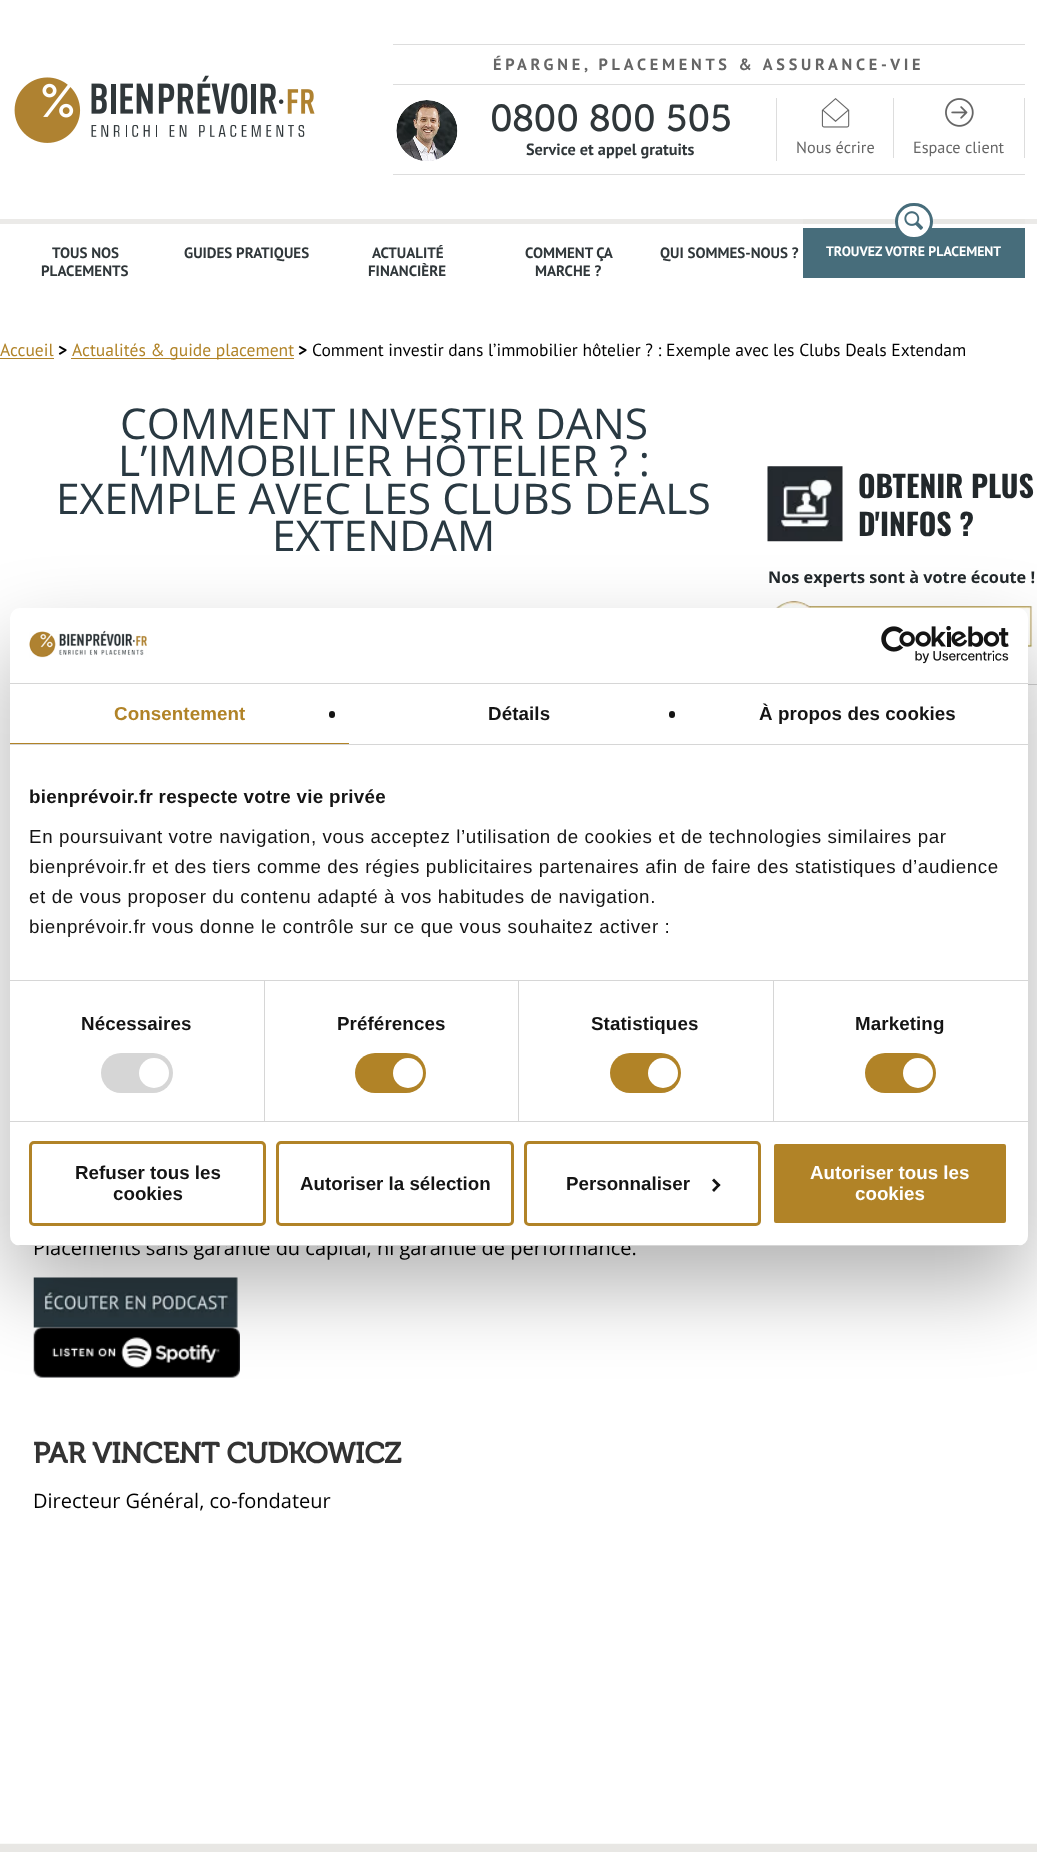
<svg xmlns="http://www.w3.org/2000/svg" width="1037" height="1852">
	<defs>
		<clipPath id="clip1"><rect x="10" y="608" width="1018" height="638" rx="10" /></clipPath>
	</defs>
	<rect width="100%" height="100%" fill="#FFFFFF" />
	<image x="14" y="75" width="301" height="68" href="assets/img1.png" />
	<rect x="393" y="44" width="632" height="1" fill="#DDDDDD" />
	<rect x="393" y="84" width="632" height="1" fill="#DDDDDD" />
	<text x="493" y="70" font-family="PT Sans" font-size="16.25" font-weight="700" letter-spacing="3.75" fill="#666666">ÉPARGNE, PLACEMENTS &amp; ASSURANCE-VIE</text>
	<rect x="393" y="174" width="632" height="1" fill="#DDDDDD" />
	<rect x="776" y="98" width="1" height="63" fill="#DDDDDD" />
	<image x="396" y="100" width="62" height="61" href="assets/img2.png" />
	<text x="490" y="131" font-family="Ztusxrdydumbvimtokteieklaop" font-size="37.5" fill="#30373A">0800 800 505</text>
	<text x="526" y="155" font-family="PT Sans" font-size="16.25" font-weight="700" fill="#30373A">Service et appel gratuits</text>
	<rect x="893" y="98" width="1" height="60" fill="#DDDDDD" />
	<image x="821" y="98" width="29" height="30" href="assets/img3.png" />
	<text x="796" y="153" font-family="PT Sans" font-size="16.25" fill="#666666">Nous écrire</text>
	<rect x="1024" y="98" width="1" height="60" fill="#DDDDDD" />
	<image x="945" y="98" width="29" height="29" href="assets/img4.png" />
	<text x="913" y="153" font-family="PT Sans" font-size="16.25" fill="#666666">Espace client</text>
	<rect x="0" y="219" width="1037" height="5" fill="#EBEAE8" />
	<g font-family="PT Sans" font-size="15" font-weight="700" fill="#30373A">
		<text x="52" y="258">TOUS NOS</text>
		<text x="41" y="276">PLACEMENTS</text>
		<text x="184" y="258">GUIDES PRATIQUES</text>
		<text x="372" y="258">ACTUALITÉ</text>
		<text x="368" y="276">FINANCIÈRE</text>
		<text x="525" y="258">COMMENT ÇA</text>
		<text x="535" y="276">MARCHE ?</text>
		<text x="660" y="258">QUI SOMMES-NOUS ?</text>
	</g>
	<rect x="803" y="228" width="222" height="50" fill="#476D7B" />
	<rect x="803" y="219" width="222" height="5" fill="#E8E7E4" />
	<rect x="896.5" y="204.5" width="35" height="34" rx="17" fill="#FFFFFF" stroke="#476D7B" stroke-width="3" />
	<image x="904" y="211" width="19" height="19" href="assets/img5.png" />
	<text x="826" y="256" font-family="PT Sans" font-size="13.75" font-weight="700" fill="#FFFFFF">TROUVEZ VOTRE PLACEMENT</text>
	<text x="0" y="356" font-family="PT Sans" font-size="17.5" fill="#B18327">Accueil</text>
	<rect x="0" y="358" width="54" height="1" fill="#B18327" />
	<text x="58" y="356" font-family="PT Sans" font-size="17.5" font-weight="700" fill="#000000">&gt;</text>
	<rect x="71" y="358" width="223" height="1" fill="#B18327" />
	<text x="72" y="356" font-family="PT Sans" font-size="17.5" fill="#B18327">Actualités &amp; guide placement</text>
	<text x="298" y="356" font-family="PT Sans" font-size="17.5" font-weight="700" fill="#000000">&gt;</text>
	<text x="312" y="356" font-family="PT Sans" font-size="17.5" fill="#000000">Comment investir dans l’immobilier hôtelier ? : Exemple avec les Clubs Deals Extendam</text>
	<g font-family="Open Sans" font-size="42.5" fill="#293942">
		<text x="120" y="439">COMMENT INVESTIR DANS</text>
		<text x="118" y="476">L’IMMOBILIER HÔTELIER ? :</text>
		<text x="56" y="514">EXEMPLE AVEC LES CLUBS DEALS</text>
		<text x="272" y="551">EXTENDAM</text>
	</g>
	<text x="33" y="1255" font-family="Open Sans" font-size="20" fill="#000000">Placements sans garantie du capital, ni garantie de performance.</text>
	<image x="33" y="1277" width="205" height="51" href="assets/img6.png" />
	<image x="33" y="1327" width="207" height="51" href="assets/img7.png" />
	<text x="33" y="1463" font-family="Ztusxrdydumbvimtokteieklaop" font-size="28.75" font-weight="700" fill="#333333">PAR VINCENT CUDKOWICZ</text>
	<text x="33" y="1508" font-family="Open Sans" font-size="20" fill="#000000">Directeur Général, co-fondateur</text>
	<rect x="1028" y="684" width="9" height="1" fill="#D3D3D3" />
	<image x="767" y="466" width="76" height="76" href="assets/img8.png" />
	<g font-family="Oswald" font-size="30" font-weight="700" fill="#22282B">
		<text x="858" y="498">OBTENIR PLUS</text>
		<text x="858" y="536">D'INFOS ?</text>
	</g>
	<text x="768" y="583" font-family="Open Sans" font-size="16.25" font-weight="700" fill="#22282B">Nos experts sont à votre écoute !</text>
	<image x="775" y="601" width="258" height="47" href="assets/img9.png" />
	<rect x="0" y="1844" width="1037" height="8" fill="#E8E7E4" />
	<image x="0" y="1843" width="1037" height="1" href="assets/img10.png" />
	<rect x="10" y="648" width="1018" height="638" rx="10" fill="#000000" fill-opacity="0.3" filter="blur(42.5px)" />
	<rect x="10" y="608" width="1018" height="638" rx="10" fill="#FFFFFF" />
	<rect x="10" y="683" width="1018" height="1" fill="#D6D6D6" />
	<image x="29" y="630" width="118" height="28" href="assets/img11.png" />
	<image x="881" y="626" width="128" height="38" href="assets/img12.png" />
	<rect x="10" y="744" width="1018" height="1" fill="#D6D6D6" />
	<rect x="10" y="743" width="339" height="1" fill="#B18327" />
	<text x="114" y="720" font-family="Liberation Sans" font-size="18.75" font-weight="700" letter-spacing="0.1" fill="#B18327">Consentement</text>
	<rect x="329" y="711" width="6" height="7" rx="3" fill="#141414" />
	<text x="488" y="720" font-family="Liberation Sans" font-size="18.75" font-weight="700" letter-spacing="0.1" fill="#141414">Détails</text>
	<rect x="669" y="711" width="6" height="7" rx="3" fill="#141414" />
	<text x="759" y="720" font-family="Liberation Sans" font-size="18.75" font-weight="700" letter-spacing="0.1" fill="#141414">À propos des cookies</text>
	<rect x="10" y="980" width="1018" height="1" fill="#D6D6D6" />
	<text x="29" y="803" font-family="Liberation Sans" font-size="18.75" font-weight="700" letter-spacing="0.3" fill="#141414">bienprévoir.fr respecte votre vie privée</text>
	<g font-family="Liberation Sans" font-size="18.75" letter-spacing="0.62" fill="#141414">
		<text x="29" y="843">En poursuivant votre navigation, vous acceptez l’utilisation de cookies et de technologies similaires par</text>
		<text x="29" y="873">bienprévoir.fr et des tiers comme des régies publicitaires partenaires afin de faire des statistiques d’audience</text>
		<text x="29" y="903">et de vous proposer du contenu adapté à vos habitudes de navigation.</text>
		<text x="29" y="933">bienprévoir.fr vous donne le contrôle sur ce que vous souhaitez activer :</text>
	</g>
	<rect x="10" y="1121" width="1018" height="1" fill="#D6D6D6" />
	<rect x="264" y="981" width="1" height="140" fill="#D6D6D6" />
	<text x="81" y="1030" font-family="Liberation Sans" font-size="18.75" font-weight="700" letter-spacing="0.1" fill="#141414">Nécessaires</text>
	<rect x="101" y="1053" width="72" height="40" rx="20" fill="#D6D6D6" />
	<circle cx="154" cy="1073" r="15" fill="#FFFFFF" />
	<rect x="518" y="981" width="1" height="140" fill="#D6D6D6" />
	<text x="337" y="1030" font-family="Liberation Sans" font-size="18.75" font-weight="700" letter-spacing="0.1" fill="#141414">Préférences</text>
	<rect x="355" y="1053" width="71" height="40" rx="20" fill="#B18327" />
	<circle cx="408" cy="1073" r="15" fill="#FFFFFF" />
	<rect x="773" y="981" width="1" height="140" fill="#D6D6D6" />
	<text x="591" y="1030" font-family="Liberation Sans" font-size="18.75" font-weight="700" letter-spacing="0.1" fill="#141414">Statistiques</text>
	<rect x="610" y="1053" width="71" height="40" rx="20" fill="#B18327" />
	<circle cx="663" cy="1073" r="15" fill="#FFFFFF" />
	<text x="855" y="1030" font-family="Liberation Sans" font-size="18.75" font-weight="700" letter-spacing="0.1" fill="#141414">Marketing</text>
	<rect x="865" y="1053" width="71" height="40" rx="20" fill="#B18327" />
	<circle cx="918" cy="1073" r="15" fill="#FFFFFF" />
	<g clip-path="url(#clip1)">
		<rect x="10" y="1245" width="1018" height="1" fill="#D6D6D6" />
	</g>
	<rect x="30.5" y="1142.5" width="234" height="82" rx="3.5" fill="none" stroke="#B18327" stroke-width="3" />
	<g font-family="Liberation Sans" font-size="18.75" font-weight="700" fill="#141414">
		<text x="75" y="1179">Refuser tous les</text>
		<text x="113" y="1200">cookies</text>
	</g>
	<rect x="277.5" y="1142.5" width="235" height="82" rx="3.5" fill="none" stroke="#B18327" stroke-width="3" />
	<text x="300" y="1190" font-family="Liberation Sans" font-size="18.75" font-weight="700" fill="#141414">Autoriser la sélection</text>
	<rect x="525.5" y="1142.5" width="234" height="82" rx="3.5" fill="none" stroke="#B18327" stroke-width="3" />
	<text x="566" y="1190" font-family="Liberation Sans" font-size="18.75" font-weight="700" fill="#141414">Personnaliser</text>
	<path d="M714 1178.5L720.5 1185L718.5 1187L712 1180.5Z" fill="#141414" />
	<path d="M718.5 1183.5L720.5 1185L714 1192L712 1190Z" fill="#141414" />
	<rect x="772.5" y="1142.5" width="235" height="82" rx="3.5" fill="#B18327" stroke="#FFFFFF" stroke-width="3" />
	<g font-family="Liberation Sans" font-size="18.75" font-weight="700" fill="#FFFFFF">
		<text x="810" y="1179">Autoriser tous les</text>
		<text x="855" y="1200">cookies</text>
	</g>
</svg>
